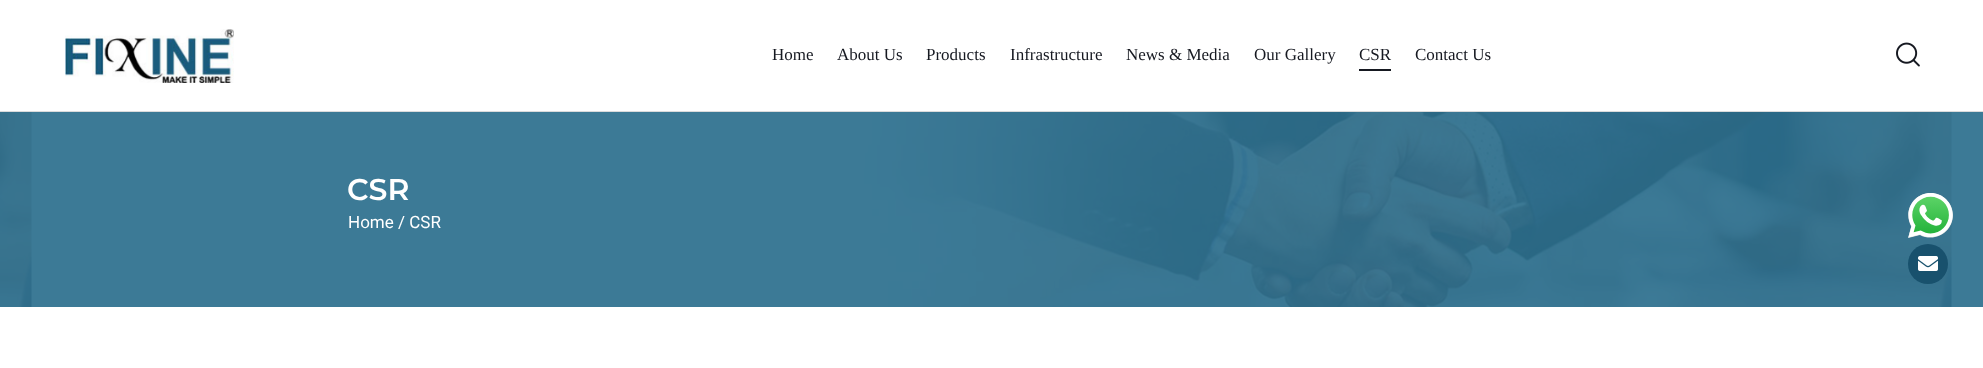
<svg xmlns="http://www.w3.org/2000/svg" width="1983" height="368">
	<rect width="100%" height="100%" fill="#FFFFFF" />
	<rect x="0" y="111" width="1983" height="1" fill="#DBDBDB" />
	<image x="65" y="29" width="169" height="54" href="assets/img1.png" />
	<g font-family="Liberation Serif" font-size="17" fill="#161921">
		<text x="772" y="60">Home</text>
		<text x="837" y="60">About Us</text>
		<text x="926" y="60">Products</text>
		<text x="1010" y="60">Infrastructure</text>
		<text x="1126" y="60">News &amp; Media</text>
		<text x="1254" y="60">Our Gallery</text>
		<text x="1359" y="60">CSR</text>
	</g>
	<rect x="1359" y="69" width="32" height="2" fill="#161921" />
	<text x="1415" y="60" font-family="Liberation Serif" font-size="17" fill="#161921">Contact Us</text>
	<image x="1896" y="42" width="24" height="25" href="assets/img2.png" />
	<image x="0" y="112" width="1983" height="195" href="assets/img3.png" />
	<text x="347" y="200" font-family="Montserrat" font-size="30" font-weight="600" fill="#FFFFFF">CSR</text>
	<g font-family="Roboto" font-size="17" fill="#FFFFFF">
		<text x="348" y="228">Home</text>
		<text x="398" y="228">/ CSR</text>
	</g>
	<image x="1908" y="193" width="45" height="45" href="assets/img4.png" />
	<circle cx="1928" cy="264" r="20" fill="#18516D" />
	<image x="1918" y="256" width="20" height="15" href="assets/img5.png" />
</svg>
